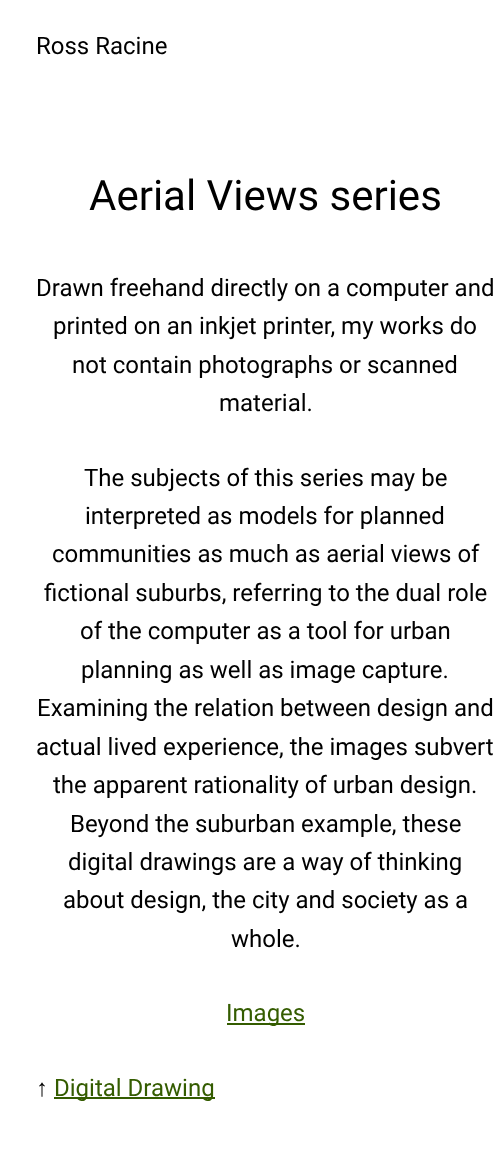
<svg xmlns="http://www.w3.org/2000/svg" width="494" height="1163">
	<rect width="100%" height="100%" fill="#FFFFFF" />
	<text x="36" y="54" font-family="Roboto" font-size="24" fill="#000000">Ross Racine</text>
	<text x="89" y="210" font-family="Roboto" font-size="42" fill="#000000">Aerial Views series</text>
	<g font-family="Roboto" font-size="24" fill="#000000">
		<text x="36" y="296">Drawn freehand directly on a computer and</text>
		<text x="53" y="334">printed on an inkjet printer, my works do</text>
		<text x="72" y="373">not contain photographs or scanned</text>
		<text x="219" y="411">material.</text>
		<text x="84" y="486">The subjects of this series may be</text>
		<text x="85" y="524">interpreted as models for planned</text>
		<text x="52" y="562">communities as much as aerial views of</text>
		<text x="44" y="601">fictional suburbs, referring to the dual role</text>
		<text x="80" y="639">of the computer as a tool for urban</text>
		<text x="81" y="678">planning as well as image capture.</text>
		<text x="37" y="716">Examining the relation between design and</text>
		<text x="36" y="755">actual lived experience, the images subvert</text>
		<text x="53" y="793">the apparent rationality of urban design.</text>
		<text x="70" y="832">Beyond the suburban example, these</text>
		<text x="68" y="870">digital drawings are a way of thinking</text>
		<text x="63" y="908">about design, the city and society as a</text>
		<text x="231" y="947">whole.</text>
	</g>
	<rect x="227" y="1023" width="78" height="2" fill="#345C00" />
	<text x="226" y="1021" font-family="Roboto" font-size="24" fill="#345C00">Images</text>
	<text x="36" y="1096" font-family="Liberation Sans" font-size="24" fill="#000000">↑</text>
	<rect x="54" y="1097" width="161" height="2" fill="#345C00" />
	<text x="54" y="1096" font-family="Roboto" font-size="24" fill="#345C00">Digital Drawing</text>
</svg>
